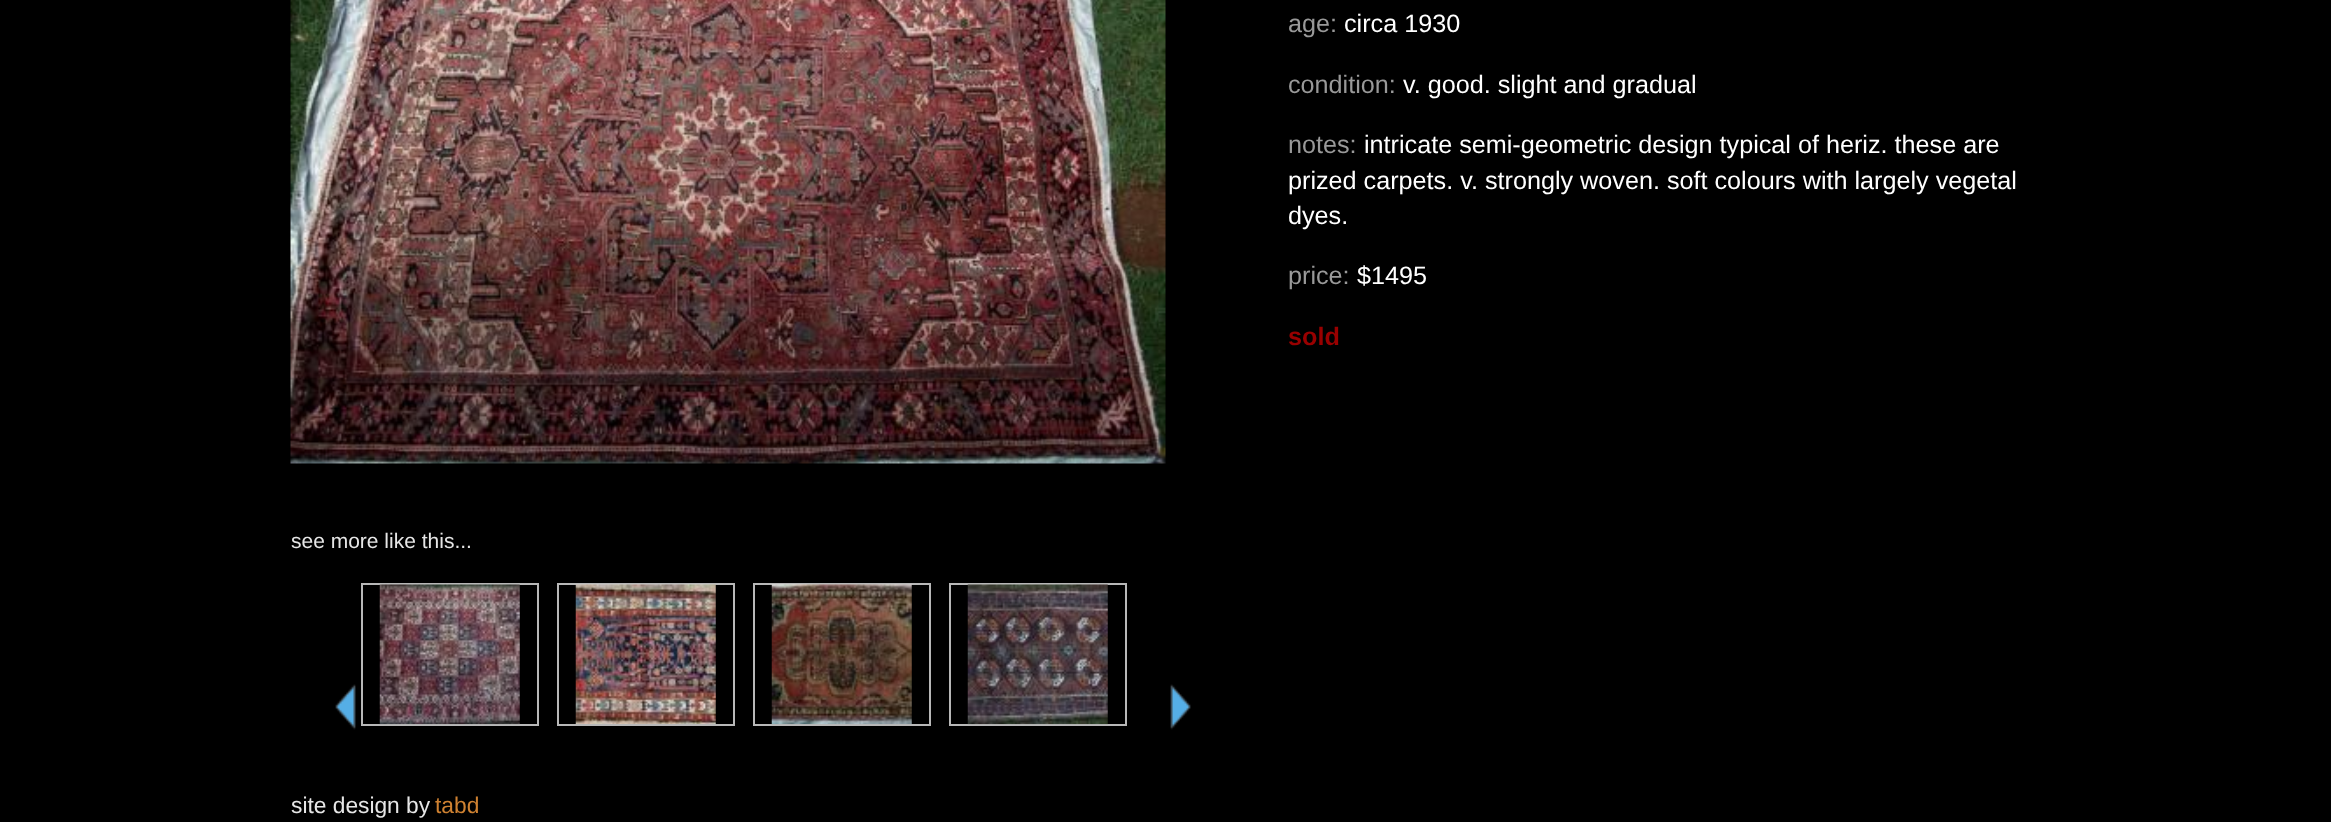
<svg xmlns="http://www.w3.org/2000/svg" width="2331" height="822">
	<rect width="100%" height="100%" fill="#000000" />
	<image x="290" y="0" width="876" height="464" href="assets/img1.png" />
	<text x="1288" y="32" font-family="Liberation Sans" font-size="25.2" fill="#999999">age:</text>
	<text x="1344" y="32" font-family="Liberation Sans" font-size="25.2" fill="#FFFFFF">circa 1930</text>
	<text x="1288" y="93" font-family="Liberation Sans" font-size="25.2" fill="#999999">condition:</text>
	<text x="1403" y="93" font-family="Liberation Sans" font-size="25.2" fill="#FFFFFF">v. good. slight and gradual</text>
	<text x="1288" y="153" font-family="Liberation Sans" font-size="25.2" fill="#999999">notes:</text>
	<g font-family="Liberation Sans" font-size="25.2" fill="#FFFFFF">
		<text x="1364" y="153">intricate semi-geometric design typical of heriz. these are</text>
		<text x="1288" y="189">prized carpets. v. strongly woven. soft colours with largely vegetal</text>
		<text x="1288" y="224">dyes.</text>
	</g>
	<text x="1288" y="284" font-family="Liberation Sans" font-size="25.2" fill="#999999">price:</text>
	<text x="1357" y="284" font-family="Liberation Sans" font-size="25.2" fill="#FFFFFF">$1495</text>
	<text x="1288" y="345" font-family="Liberation Sans" font-size="25.2" font-weight="700" fill="#990000">sold</text>
	<text x="291" y="548" font-family="Liberation Sans" font-size="21" fill="#E6E6E6">see more like this...</text>
	<image x="335" y="684" width="21" height="46" href="assets/img2.png" />
	<rect x="362" y="584" width="176" height="141" fill="none" stroke="#B8B8B8" stroke-width="2" />
	<image x="379" y="584" width="141" height="141" href="assets/img3.png" />
	<rect x="558" y="584" width="176" height="141" fill="none" stroke="#B8B8B8" stroke-width="2" />
	<image x="575" y="584" width="141" height="140" href="assets/img4.png" />
	<rect x="754" y="584" width="176" height="141" fill="none" stroke="#B8B8B8" stroke-width="2" />
	<image x="771" y="584" width="141" height="141" href="assets/img5.png" />
	<rect x="950" y="584" width="176" height="141" fill="none" stroke="#B8B8B8" stroke-width="2" />
	<image x="967" y="584" width="141" height="141" href="assets/img6.png" />
	<image x="1170" y="684" width="21" height="46" href="assets/img7.png" />
	<text x="291" y="813" font-family="Liberation Sans" font-size="22.75" fill="#E6E6E6">site design by</text>
	<text x="435" y="813" font-family="Liberation Sans" font-size="22.75" fill="#CE8131">tabd</text>
</svg>
